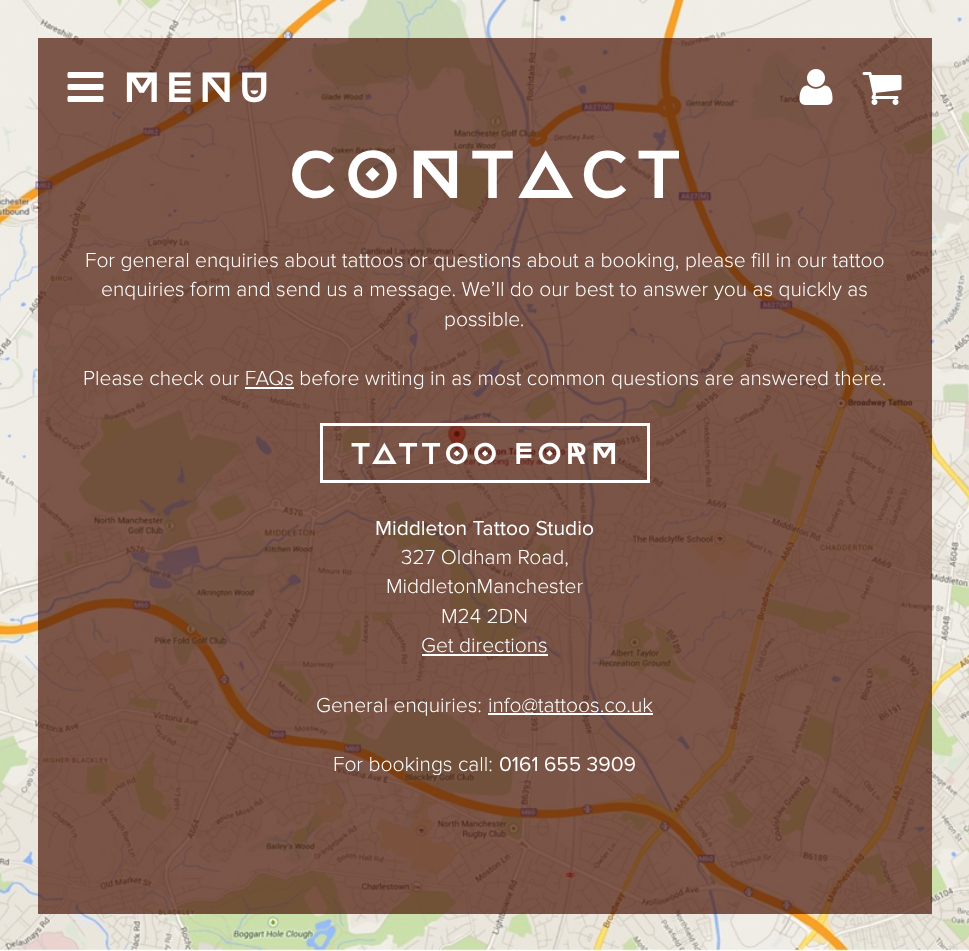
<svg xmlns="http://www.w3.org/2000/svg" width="969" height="951">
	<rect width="100%" height="100%" fill="#FFFFFF" />
	<image x="0" y="0" width="969" height="951" href="assets/img1.png" />
	<rect x="38" y="38" width="894" height="876" fill="#4A1606" fill-opacity="0.7" />
	<image x="67" y="72" width="37" height="30" href="assets/img2.png" />
	<text x="121" y="102" font-family="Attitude" font-size="42" fill="#FFFFFF">Menu</text>
	<image x="799" y="69" width="34" height="36" href="assets/img3.png" />
	<image x="862" y="72" width="40" height="33" href="assets/img4.png" />
	<text x="285" y="198" font-family="Attitude" font-size="67.5" fill="#FFFFFF">ContaCt</text>
	<g font-family="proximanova" font-size="21" font-weight="300" fill="#FFFFFF">
		<text x="85" y="267">For general enquiries about tattoos or questions about a booking, please fill in our tattoo</text>
		<text x="101" y="296">enquiries form and send us a message. We’ll do our best to answer you as quickly as</text>
		<text x="444" y="326">possible.</text>
		<text x="83" y="385">Please check our FAQs before writing in as most common questions are answered there.</text>
	</g>
	<rect x="245" y="387" width="49" height="2" fill="#FFFFFF" />
	<rect x="321.5" y="424.5" width="327" height="57" fill="none" stroke="#FFFFFF" stroke-width="3" />
	<text x="349" y="464" font-family="Attitude" font-size="30" fill="#FFFFFF">tattoo form</text>
	<text x="375" y="535" font-family="proximanova" font-size="21" fill="#FFFFFF">Middleton Tattoo Studio</text>
	<g font-family="proximanova" font-size="21" font-weight="300" fill="#FFFFFF">
		<text x="401" y="564">327 Oldham Road,</text>
		<text x="386" y="593">MiddletonManchester</text>
		<text x="441" y="623">M24 2DN</text>
		<text x="421" y="652">Get directions</text>
	</g>
	<rect x="422" y="654" width="126" height="2" fill="#FFFFFF" />
	<text x="316" y="712" font-family="proximanova" font-size="21" font-weight="300" fill="#FFFFFF">General enquiries:</text>
	<rect x="488" y="713" width="165" height="2" fill="#FFFFFF" />
	<g font-family="proximanova" font-size="21" font-weight="300" fill="#FFFFFF">
		<text x="488" y="712">info@tattoos.co.uk</text>
		<text x="333" y="771">For bookings call:</text>
	</g>
	<text x="499" y="771" font-family="proximanova" font-size="21" fill="#FFFFFF">0161 655 3909</text>
</svg>
